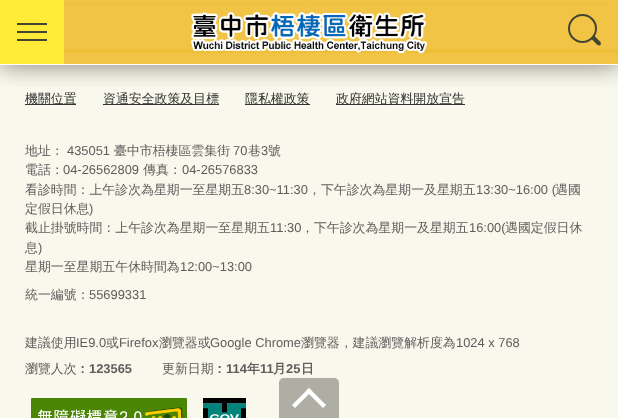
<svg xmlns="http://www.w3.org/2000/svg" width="618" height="418">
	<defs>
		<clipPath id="clip1"><rect x="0" y="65" width="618" height="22" /></clipPath>
	</defs>
	<rect width="100%" height="100%" fill="#F1C445" />
	<path d="M606-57V6L605 2V-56Z" fill="#EDC241" />
	<path d="M606 6H312L313 2H605Z" fill="#EEC241" />
	<path d="M312 6V-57L313-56V2ZM306-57V6L305 2V-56Z" fill="#EDC241" />
	<path d="M306 6H12L13 2H305Z" fill="#EEC241" />
	<rect x="0" y="65" width="618" height="353" fill="#F9F8EC" />
	<rect x="64" y="49" width="554" height="4" fill="#EFBE39" />
	<g clip-path="url(#clip1)">
		<rect x="0" y="0" width="618" height="65" fill="#000000" fill-opacity="0.5" filter="blur(12.5px)" />
	</g>
	<rect x="0" y="64" width="618" height="1" fill="#FFFFFF" />
	<rect x="0" y="0" width="64" height="64" fill="#FFEB38" />
	<rect x="17" y="39" width="30" height="2" fill="#444433" />
	<rect x="17" y="23" width="30" height="2" fill="#444433" />
	<rect x="17" y="31" width="30" height="2" fill="#444433" />
	<image x="191" y="12" width="236" height="42" href="assets/img1.png" />
	<circle cx="582.5" cy="28.5" r="13.5" fill="none" stroke="#444433" stroke-width="2" />
	<path d="M594 35.5L600.5 42C601 43 601 44 600.5 45C599.5 45.5 598.5 45.5 597.5 45L591 38.5Z" fill="#444433" />
	<rect x="25" y="104" width="51" height="1" fill="#333333" />
	<text x="25" y="103" font-family="WenQuanYi Zen Hei" font-size="12.9" font-weight="500" fill="#333333">機關位置</text>
	<rect x="103" y="104" width="116" height="1" fill="#333333" />
	<text x="103" y="103" font-family="WenQuanYi Zen Hei" font-size="12.9" font-weight="500" fill="#333333">資通安全政策及目標</text>
	<rect x="245" y="104" width="65" height="1" fill="#333333" />
	<text x="245" y="103" font-family="WenQuanYi Zen Hei" font-size="12.9" font-weight="500" fill="#333333">隱私權政策</text>
	<rect x="336" y="104" width="129" height="1" fill="#333333" />
	<text x="336" y="103" font-family="WenQuanYi Zen Hei" font-size="12.9" font-weight="500" fill="#333333">政府網站資料開放宣告</text>
	<text x="25" y="155" font-family="WenQuanYi Zen Hei" font-size="12.9" font-weight="500" fill="#5F5C5C">地址：</text>
	<text x="67" y="155" font-family="Liberation Sans" font-size="12.9" fill="#5F5C5C">435051</text>
	<text x="114" y="155" font-family="WenQuanYi Zen Hei" font-size="12.9" font-weight="500" fill="#5F5C5C">臺中市梧棲區雲集街</text>
	<text x="233" y="155" font-family="Liberation Sans" font-size="12.9" fill="#5F5C5C">70</text>
	<text x="248" y="155" font-family="WenQuanYi Zen Hei" font-size="12.9" font-weight="500" fill="#5F5C5C">巷</text>
	<text x="261" y="155" font-family="Liberation Sans" font-size="12.9" fill="#5F5C5C">3</text>
	<g font-family="WenQuanYi Zen Hei" font-size="12.9" font-weight="500" fill="#5F5C5C">
		<text x="268" y="155">號</text>
		<text x="25" y="174">電話：</text>
	</g>
	<text x="63" y="174" font-family="Liberation Sans" font-size="12.9" fill="#5F5C5C">04-26562809</text>
	<text x="143" y="174" font-family="WenQuanYi Zen Hei" font-size="12.9" font-weight="500" fill="#5F5C5C">傳真：</text>
	<text x="182" y="174" font-family="Liberation Sans" font-size="12.9" fill="#5F5C5C">04-26576833</text>
	<text x="25" y="194" font-family="WenQuanYi Zen Hei" font-size="12.9" font-weight="500" fill="#5F5C5C">看診時間：上午診次為星期一至星期五</text>
	<text x="244" y="194" font-family="Liberation Sans" font-size="12.9" fill="#5F5C5C">8:30~11:30</text>
	<text x="308" y="194" font-family="WenQuanYi Zen Hei" font-size="12.9" font-weight="500" fill="#5F5C5C">，下午診次為星期一及星期五</text>
	<text x="476" y="194" font-family="Liberation Sans" font-size="12.9" fill="#5F5C5C">13:30~16:00 (</text>
	<g font-family="WenQuanYi Zen Hei" font-size="12.9" font-weight="500" fill="#5F5C5C">
		<text x="555" y="194">遇國</text>
		<text x="25" y="213">定假日休息</text>
	</g>
	<text x="89" y="213" font-family="Liberation Sans" font-size="12.9" fill="#5F5C5C">)</text>
	<text x="25" y="232" font-family="WenQuanYi Zen Hei" font-size="12.9" font-weight="500" fill="#5F5C5C">截止掛號時間：上午診次為星期一至星期五</text>
	<text x="270" y="232" font-family="Liberation Sans" font-size="12.9" fill="#5F5C5C">11:30</text>
	<text x="301" y="232" font-family="WenQuanYi Zen Hei" font-size="12.9" font-weight="500" fill="#5F5C5C">，下午診次為星期一及星期五</text>
	<text x="469" y="232" font-family="Liberation Sans" font-size="12.9" fill="#5F5C5C">16:00(</text>
	<g font-family="WenQuanYi Zen Hei" font-size="12.9" font-weight="500" fill="#5F5C5C">
		<text x="505" y="232">遇國定假日休</text>
		<text x="25" y="252">息</text>
	</g>
	<text x="38" y="252" font-family="Liberation Sans" font-size="12.9" fill="#5F5C5C">)</text>
	<text x="25" y="271" font-family="WenQuanYi Zen Hei" font-size="12.9" font-weight="500" fill="#5F5C5C">星期一至星期五午休時間為</text>
	<text x="180" y="271" font-family="Liberation Sans" font-size="12.9" fill="#5F5C5C">12:00~13:00</text>
	<text x="25" y="299" font-family="WenQuanYi Zen Hei" font-size="12.9" font-weight="500" fill="#5F5C5C">統一編號：</text>
	<text x="89" y="299" font-family="Liberation Sans" font-size="12.9" fill="#5F5C5C">55699331</text>
	<text x="25" y="347" font-family="WenQuanYi Zen Hei" font-size="12.9" font-weight="500" fill="#5F5C5C">建議使用</text>
	<text x="76" y="347" font-family="Liberation Sans" font-size="12.9" fill="#5F5C5C">IE9.0</text>
	<text x="106" y="347" font-family="WenQuanYi Zen Hei" font-size="12.9" font-weight="500" fill="#5F5C5C">或</text>
	<text x="119" y="347" font-family="Liberation Sans" font-size="12.9" fill="#5F5C5C">Firefox</text>
	<text x="159" y="347" font-family="WenQuanYi Zen Hei" font-size="12.9" font-weight="500" fill="#5F5C5C">瀏覽器或</text>
	<text x="210" y="347" font-family="Liberation Sans" font-size="12.9" fill="#5F5C5C">Google Chrome</text>
	<text x="301" y="347" font-family="WenQuanYi Zen Hei" font-size="12.9" font-weight="500" fill="#5F5C5C">瀏覽器，建議瀏覽解析度為</text>
	<text x="456" y="347" font-family="Liberation Sans" font-size="12.9" fill="#5F5C5C">1024 x 768</text>
	<text x="25" y="373" font-family="WenQuanYi Zen Hei" font-size="12.9" font-weight="500" fill="#5F5C5C">瀏覽人次</text>
	<text x="76" y="373" font-family="WenQuanYi Zen Hei" font-size="12.9" font-weight="700" fill="#5F5C5C">：</text>
	<text x="89" y="373" font-family="Liberation Sans" font-size="12.9" font-weight="700" fill="#5F5C5C">123565</text>
	<text x="162" y="373" font-family="WenQuanYi Zen Hei" font-size="12.9" font-weight="500" fill="#5F5C5C">更新日期</text>
	<text x="213" y="373" font-family="WenQuanYi Zen Hei" font-size="12.9" font-weight="700" fill="#5F5C5C">：</text>
	<text x="226" y="373" font-family="Liberation Sans" font-size="12.9" font-weight="700" fill="#5F5C5C">114</text>
	<text x="247" y="373" font-family="WenQuanYi Zen Hei" font-size="12.9" font-weight="700" fill="#5F5C5C">年</text>
	<text x="260" y="373" font-family="Liberation Sans" font-size="12.9" font-weight="700" fill="#5F5C5C">11</text>
	<text x="273" y="373" font-family="WenQuanYi Zen Hei" font-size="12.9" font-weight="700" fill="#5F5C5C">月</text>
	<text x="286" y="373" font-family="Liberation Sans" font-size="12.9" font-weight="700" fill="#5F5C5C">25</text>
	<text x="301" y="373" font-family="WenQuanYi Zen Hei" font-size="12.9" font-weight="700" fill="#5F5C5C">日</text>
	<image x="31" y="398" width="156" height="20" href="assets/img2.png" />
	<image x="203" y="398" width="43" height="20" href="assets/img3.png" />
	<path d="M284 378H334C337 378 339 380 339 383V418H279V383C279 380 281 378 284 378Z" fill="#AEAEA5" />
	<path d="M309 388L326 405L323 408L306 391Z" fill="#FFFFFF" />
	<path d="M309 388L312 391L295 408L292 405Z" fill="#FFFFFF" />
</svg>
